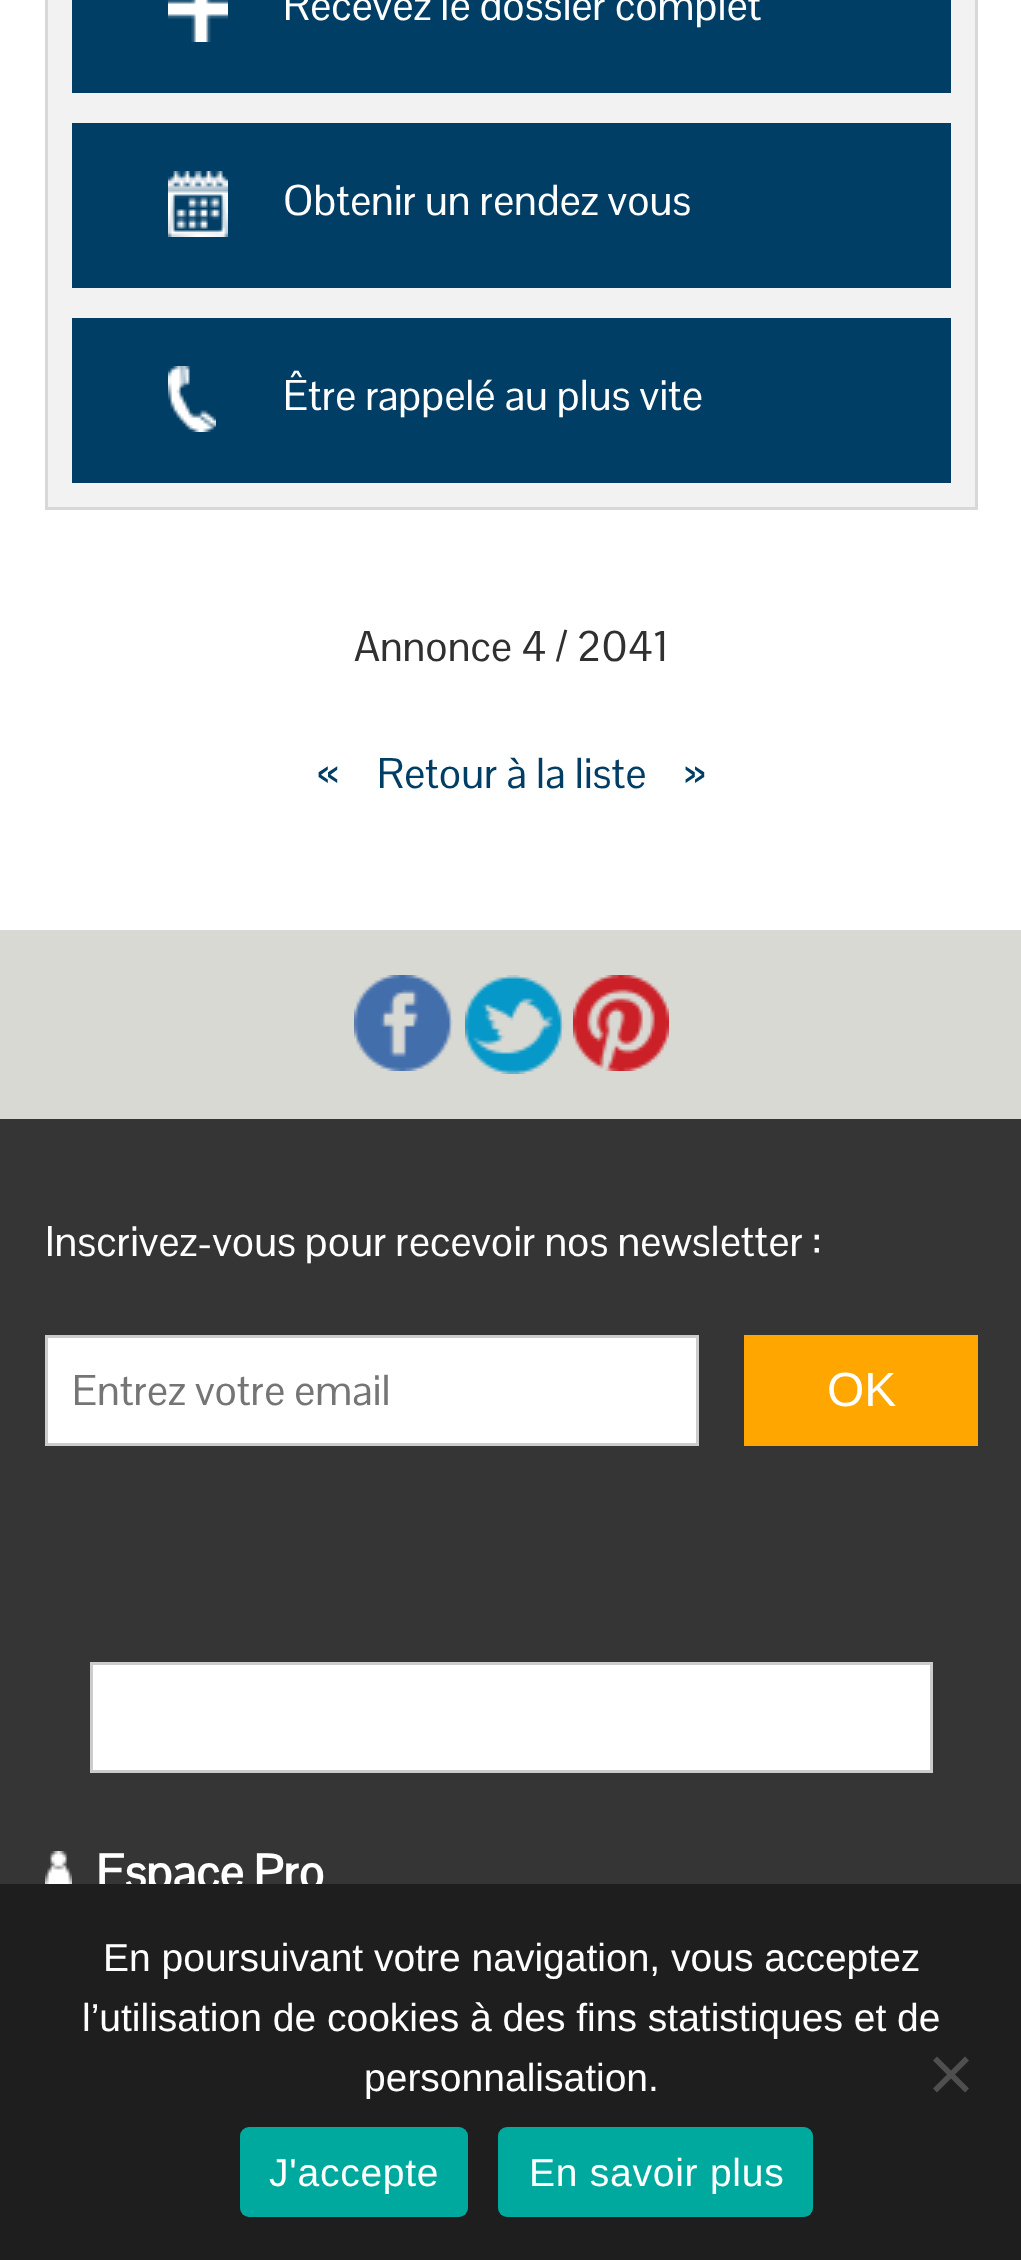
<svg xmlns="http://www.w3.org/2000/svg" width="1021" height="2260">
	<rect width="100%" height="100%" fill="#FFFFFF" />
	<rect x="46.5" y="-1.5" width="930" height="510" fill="#F2F2F2" stroke="#D8D8D8" stroke-width="3" />
	<rect x="72" y="0" width="879" height="93" fill="#003E66" />
	<image x="168" y="0" width="60" height="42" href="assets/img1.png" />
	<text x="283" y="20" font-family="Pontano Sans" font-size="42" fill="#FFFFFF">Recevez le dossier complet</text>
	<rect x="72" y="123" width="879" height="165" fill="#003E66" />
	<image x="168" y="171" width="60" height="66" href="assets/img2.png" />
	<text x="283" y="215" font-family="Pontano Sans" font-size="42" fill="#FFFFFF">Obtenir un rendez vous</text>
	<rect x="72" y="318" width="879" height="165" fill="#003E66" />
	<image x="168" y="366" width="48" height="66" href="assets/img3.png" />
	<text x="283" y="410" font-family="Pontano Sans" font-size="42" fill="#FFFFFF">Être rappelé au plus vite</text>
	<text x="354" y="661" font-family="Pontano Sans" font-size="42" fill="#303030">Annonce 4 / 2041</text>
	<g font-family="Pontano Sans" font-size="42" fill="#003E66">
		<text x="318" y="788">«</text>
		<text x="377" y="788">Retour à la liste</text>
		<text x="685" y="788">»</text>
	</g>
	<rect x="0" y="930" width="1021" height="189" fill="#D9D9D4" />
	<image x="354" y="975" width="99" height="96" href="assets/img4.png" />
	<image x="465" y="975" width="99" height="99" href="assets/img5.png" />
	<image x="573" y="975" width="96" height="96" href="assets/img6.png" />
	<rect x="0" y="1119" width="1021" height="765" fill="#353535" />
	<text x="45" y="1256" font-family="Pontano Sans" font-size="42" fill="#FFFFFF">Inscrivez-vous pour recevoir nos newsletter :</text>
	<rect x="46.5" y="1336.5" width="651" height="108" fill="#FFFFFF" stroke="#CCCCCC" stroke-width="3" />
	<text x="72" y="1405" font-family="Pontano Sans" font-size="42" fill="#757575">Entrez votre email</text>
	<rect x="744" y="1335" width="234" height="111" fill="#FFA600" />
	<text x="827" y="1406" font-family="Liberation Sans" font-size="48" fill="#FFFFFF">OK</text>
	<rect x="91.5" y="1663.5" width="840" height="108" fill="#FFFFFF" stroke="#CCCCCC" stroke-width="3" />
	<image x="45" y="1851" width="27" height="33" href="assets/img7.png" />
	<text x="96" y="1889" font-family="Pontano Sans" font-size="48" font-weight="700" fill="#FFFFFF">Espace Pro</text>
	<rect x="0" y="1884" width="1021" height="376" fill="#1E1E1E" />
	<g font-family="Liberation Sans" font-size="39" fill="#FFFFFF">
		<text x="103" y="1971">En poursuivant votre navigation, vous acceptez</text>
		<text x="82" y="2031">l’utilisation de cookies à des fins statistiques et de</text>
		<text x="364" y="2091">personnalisation.</text>
	</g>
	<path d="M965 2056.5L969 2060.5L937 2092.5L933 2088.5Z" fill="#4F4F4F" />
	<path d="M933 2060.5L937 2056.5L969 2088.5L965 2092.5Z" fill="#4F4F4F" />
	<rect x="240" y="2127" width="228" height="90" rx="9" fill="#00A99D" />
	<text x="269" y="2186" font-family="Liberation Sans" font-size="39" letter-spacing="0.75" fill="#FFFFFF">J'accepte</text>
	<rect x="498" y="2127" width="315" height="90" rx="9" fill="#00A99D" />
	<text x="529" y="2186" font-family="Liberation Sans" font-size="39" letter-spacing="0.75" fill="#FFFFFF">En savoir plus</text>
</svg>
